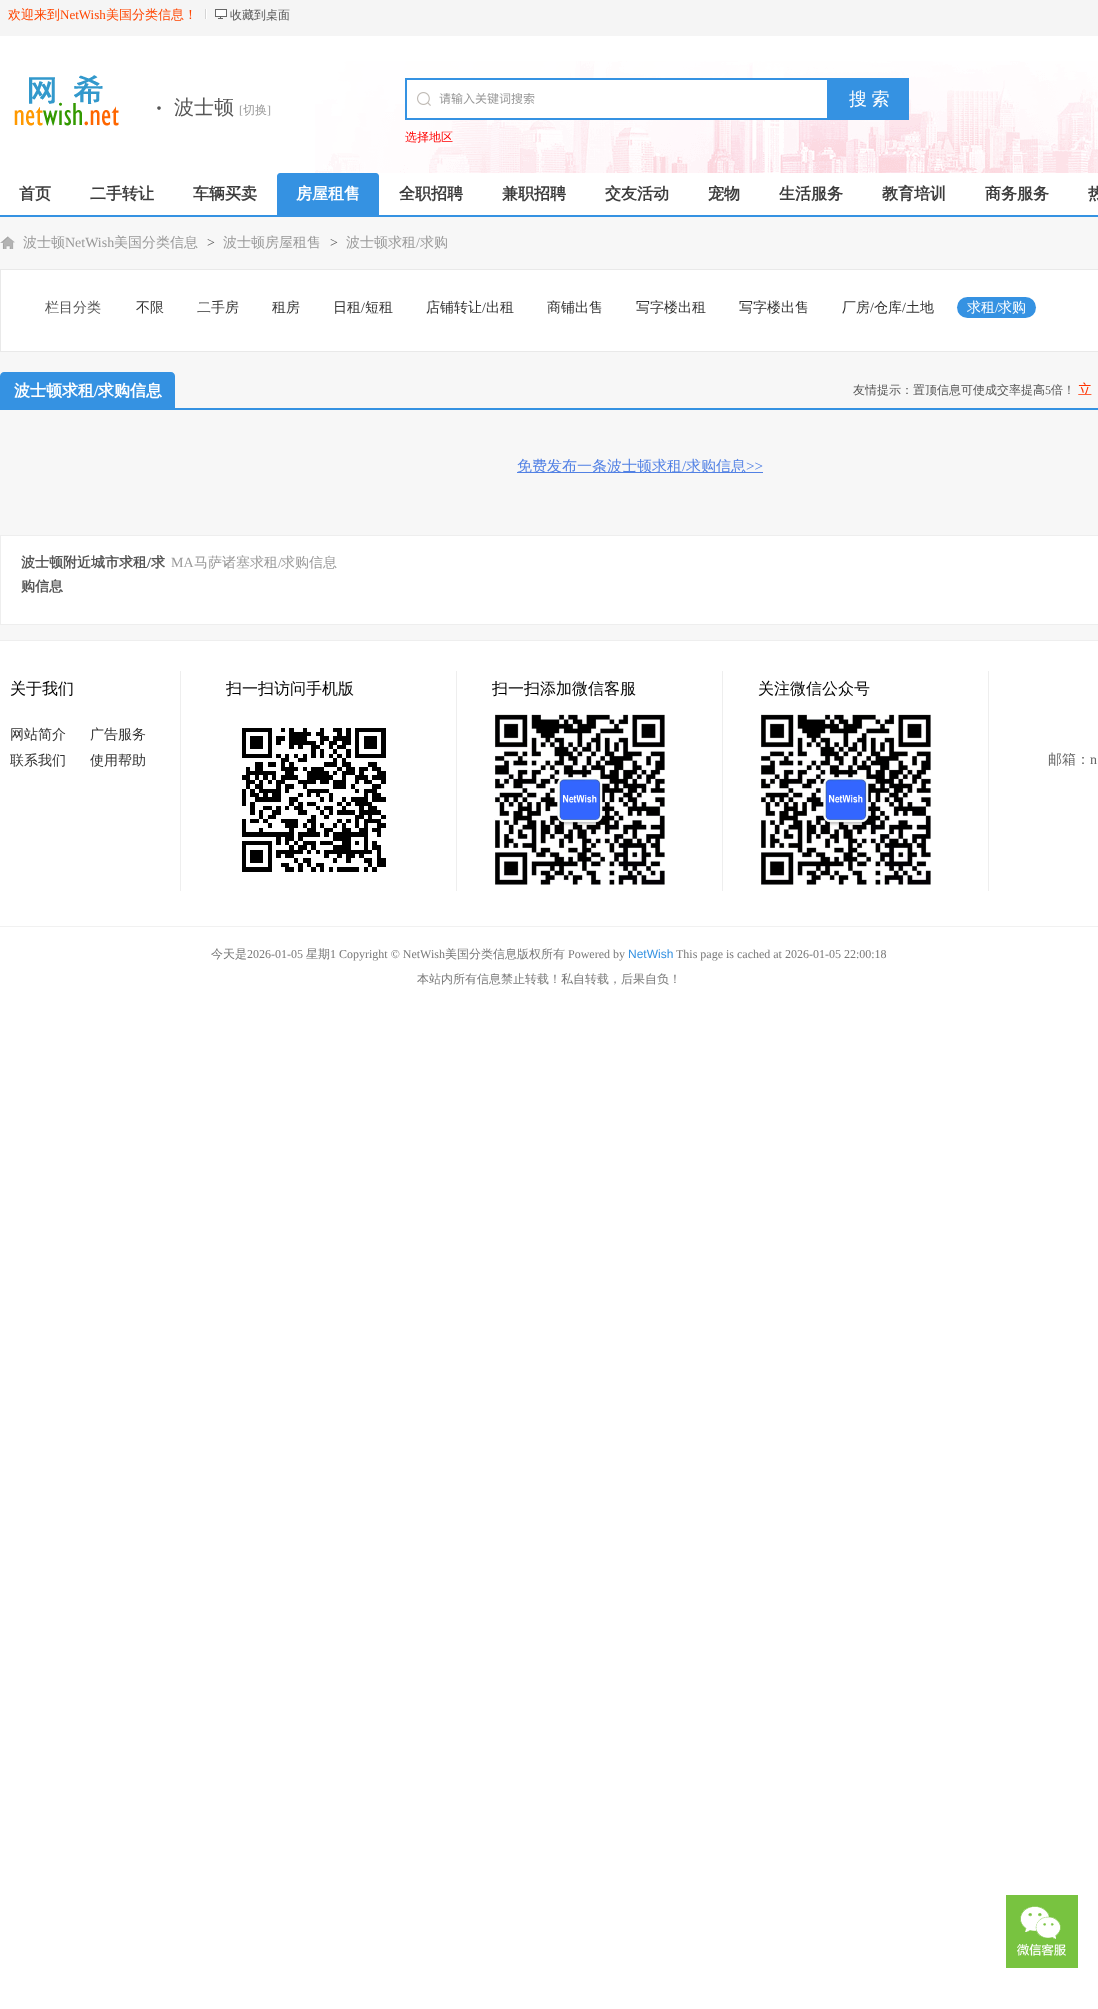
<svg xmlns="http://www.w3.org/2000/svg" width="1098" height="2009">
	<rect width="100%" height="100%" fill="#FFFFFF" />
	<image x="315" y="61" width="783" height="112" href="assets/img1.png" />
	<rect x="0" y="0" width="1098" height="36" fill="#F5F5F5" />
	<text x="8" y="19" font-family="WenQuanYi Zen Hei" font-size="13" font-weight="500" fill="#FF4500">欢迎来到</text>
	<text x="60" y="19" font-family="Liberation Serif" font-size="13" fill="#FF4500">NetWish</text>
	<text x="106" y="19" font-family="WenQuanYi Zen Hei" font-size="13" font-weight="500" fill="#FF4500">美国分类信息！</text>
	<rect x="206" y="9" width="1" height="10" fill="#FFFFFF" />
	<rect x="205" y="9" width="1" height="10" fill="#D4D4D4" />
	<image x="215" y="9" width="12" height="10" href="assets/img2.png" />
	<text x="230" y="19" font-family="WenQuanYi Zen Hei" font-size="12" font-weight="500" fill="#555555">收藏到桌面</text>
	<image x="14" y="75" width="105" height="51" href="assets/img3.png" />
	<text x="154" y="118" font-family="Liberation Serif" font-size="30" fill="#555555">·</text>
	<text x="174" y="114" font-family="WenQuanYi Zen Hei" font-size="20" font-weight="500" fill="#555555">波士顿</text>
	<text x="239" y="114" font-family="Liberation Serif" font-size="12" fill="#999999">[</text>
	<text x="243" y="114" font-family="WenQuanYi Zen Hei" font-size="12" font-weight="500" fill="#999999">切换</text>
	<text x="267" y="114" font-family="Liberation Serif" font-size="12" fill="#999999">]</text>
	<rect x="407" y="80" width="420" height="38" fill="#FFFFFF" />
	<image x="417" y="92" width="14" height="14" href="assets/img4.png" />
	<rect x="406" y="79" width="422" height="40" fill="none" stroke="#3592E2" stroke-width="2" />
	<text x="439" y="103" font-family="Noto Sans CJK SC" font-size="12" fill="#999999">请输入关键词搜索</text>
	<rect x="829" y="78" width="80" height="42" fill="#3592E2" />
	<text x="849" y="105" word-spacing="-1" font-family="WenQuanYi Zen Hei" font-size="18" font-weight="500" fill="#FFFFFF">搜 索</text>
	<text x="405" y="141" font-family="WenQuanYi Zen Hei" font-size="12" font-weight="500" fill="#FF0000">选择地区</text>
	<rect x="0" y="215" width="1098" height="2" fill="#3592E2" />
	<g font-family="WenQuanYi Zen Hei" font-size="16" font-weight="700" fill="#3D3D3D">
		<text x="19" y="199">首页</text>
		<text x="90" y="199">二手转让</text>
		<text x="193" y="199">车辆买卖</text>
	</g>
	<path d="M280 173H376C377.5 173 379 174.5 379 176V215H277V176C277 174.5 278.5 173 280 173Z" fill="#3592E2" />
	<text x="296" y="199" font-family="WenQuanYi Zen Hei" font-size="16" font-weight="700" fill="#FFFFFF">房屋租售</text>
	<g font-family="WenQuanYi Zen Hei" font-size="16" font-weight="700" fill="#3D3D3D">
		<text x="399" y="199">全职招聘</text>
		<text x="502" y="199">兼职招聘</text>
		<text x="605" y="199">交友活动</text>
		<text x="708" y="199">宠物</text>
		<text x="779" y="199">生活服务</text>
		<text x="882" y="199">教育培训</text>
		<text x="985" y="199">商务服务</text>
		<text x="1088" y="199">热</text>
	</g>
	<rect x="0" y="217" width="1098" height="423" fill="#F7F7F7" />
	<image x="0" y="236" width="15" height="13" href="assets/img5.png" />
	<text x="23" y="247" font-family="WenQuanYi Zen Hei" font-size="14" font-weight="500" fill="#999999">波士顿</text>
	<text x="65" y="247" font-family="Liberation Serif" font-size="14" fill="#999999">NetWish</text>
	<text x="114" y="247" font-family="WenQuanYi Zen Hei" font-size="14" font-weight="500" fill="#999999">美国分类信息</text>
	<text x="207" y="247" font-family="Liberation Serif" font-size="14" fill="#555555">&gt;</text>
	<text x="223" y="247" font-family="WenQuanYi Zen Hei" font-size="14" font-weight="500" fill="#999999">波士顿房屋租售</text>
	<text x="330" y="247" font-family="Liberation Serif" font-size="14" fill="#555555">&gt;</text>
	<text x="346" y="247" font-family="WenQuanYi Zen Hei" font-size="14" font-weight="500" fill="#999999">波士顿求租</text>
	<text x="416" y="247" font-family="Liberation Serif" font-size="14" fill="#999999">/</text>
	<text x="420" y="247" font-family="WenQuanYi Zen Hei" font-size="14" font-weight="500" fill="#999999">求购</text>
	<rect x="0.5" y="269.5" width="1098" height="82" fill="#FFFFFF" stroke="#E9E9E9" />
	<text x="45" y="312" font-family="WenQuanYi Zen Hei" font-size="14" font-weight="500" fill="#555555">栏目分类</text>
	<g font-family="WenQuanYi Zen Hei" font-size="14" font-weight="500" fill="#333333">
		<text x="136" y="312">不限</text>
		<text x="197" y="312">二手房</text>
		<text x="272" y="312">租房</text>
		<text x="333" y="312">日租</text>
	</g>
	<text x="361" y="312" font-family="Liberation Serif" font-size="14" fill="#333333">/</text>
	<g font-family="WenQuanYi Zen Hei" font-size="14" font-weight="500" fill="#333333">
		<text x="365" y="312">短租</text>
		<text x="426" y="312">店铺转让</text>
	</g>
	<text x="482" y="312" font-family="Liberation Serif" font-size="14" fill="#333333">/</text>
	<g font-family="WenQuanYi Zen Hei" font-size="14" font-weight="500" fill="#333333">
		<text x="486" y="312">出租</text>
		<text x="547" y="312">商铺出售</text>
		<text x="636" y="312">写字楼出租</text>
		<text x="739" y="312">写字楼出售</text>
		<text x="842" y="312">厂房</text>
	</g>
	<text x="870" y="312" font-family="Liberation Serif" font-size="14" fill="#333333">/</text>
	<text x="874" y="312" font-family="WenQuanYi Zen Hei" font-size="14" font-weight="500" fill="#333333">仓库</text>
	<text x="902" y="312" font-family="Liberation Serif" font-size="14" fill="#333333">/</text>
	<text x="906" y="312" font-family="WenQuanYi Zen Hei" font-size="14" font-weight="500" fill="#333333">土地</text>
	<rect x="957" y="297" width="79" height="21" rx="10.5" fill="#3592E2" />
	<text x="967" y="312" font-family="WenQuanYi Zen Hei" font-size="14" font-weight="500" fill="#FFFFFF">求租</text>
	<text x="995" y="312" font-family="Liberation Serif" font-size="14" fill="#FFFFFF">/</text>
	<text x="998" y="312" font-family="WenQuanYi Zen Hei" font-size="14" font-weight="500" fill="#FFFFFF">求购</text>
	<rect x="175" y="408" width="923" height="2" fill="#3592E2" />
	<path d="M4 372H171C173 372 175 374 175 376V410H0V376C0 374 2 372 4 372Z" fill="#3592E2" />
	<text x="14" y="396" font-family="WenQuanYi Zen Hei" font-size="16" font-weight="700" fill="#FFFFFF">波士顿求租</text>
	<text x="94" y="396" font-family="Liberation Serif" font-size="16" font-weight="700" fill="#FFFFFF">/</text>
	<text x="98" y="396" font-family="WenQuanYi Zen Hei" font-size="16" font-weight="700" fill="#FFFFFF">求购信息</text>
	<text x="853" y="394" font-family="WenQuanYi Zen Hei" font-size="12" font-weight="500" fill="#555555">友情提示：置顶信息可使成交率提高</text>
	<text x="1045" y="394" font-family="Liberation Serif" font-size="12" fill="#555555">5</text>
	<text x="1051" y="394" font-family="WenQuanYi Zen Hei" font-size="12" font-weight="500" fill="#555555">倍！</text>
	<text x="1078" y="394" font-family="WenQuanYi Zen Hei" font-size="14" font-weight="500" fill="#FF3300">立</text>
	<rect x="517" y="472" width="246" height="1" fill="#5281E4" />
	<text x="517" y="471" font-family="WenQuanYi Zen Hei" font-size="15" font-weight="500" fill="#5281E4">免费发布一条波士顿求租</text>
	<text x="682" y="471" font-family="Liberation Serif" font-size="15" fill="#5281E4">/</text>
	<text x="686" y="471" font-family="WenQuanYi Zen Hei" font-size="15" font-weight="500" fill="#5281E4">求购信息</text>
	<text x="746" y="471" font-family="Liberation Serif" font-size="15" fill="#5281E4">&gt;&gt;</text>
	<rect x="0.5" y="535.5" width="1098" height="89" fill="#FFFFFF" stroke="#EEEEEE" />
	<text x="21" y="567" font-family="WenQuanYi Zen Hei" font-size="14" font-weight="700" fill="#555555">波士顿附近城市求租</text>
	<text x="147" y="567" font-family="Liberation Serif" font-size="14" font-weight="700" fill="#555555">/</text>
	<g font-family="WenQuanYi Zen Hei" font-size="14" font-weight="700" fill="#555555">
		<text x="151" y="567">求</text>
		<text x="21" y="591">购信息</text>
	</g>
	<text x="171" y="567" font-family="Liberation Serif" font-size="14" fill="#999999">MA</text>
	<text x="194" y="567" font-family="WenQuanYi Zen Hei" font-size="14" font-weight="500" fill="#999999">马萨诸塞求租</text>
	<text x="278" y="567" font-family="Liberation Serif" font-size="14" fill="#999999">/</text>
	<text x="281" y="567" font-family="WenQuanYi Zen Hei" font-size="14" font-weight="500" fill="#999999">求购信息</text>
	<rect x="0" y="640" width="1098" height="1" fill="#EEEEEE" />
	<rect x="180" y="671" width="1" height="220" fill="#EEEEEE" />
	<text x="10" y="694" font-family="WenQuanYi Zen Hei" font-size="16" font-weight="500" fill="#000000">关于我们</text>
	<g font-family="WenQuanYi Zen Hei" font-size="14" font-weight="500" fill="#333333">
		<text x="10" y="739">网站简介</text>
		<text x="90" y="739">广告服务</text>
		<text x="10" y="765">联系我们</text>
		<text x="90" y="765">使用帮助</text>
	</g>
	<rect x="456" y="671" width="1" height="220" fill="#EEEEEE" />
	<text x="226" y="694" font-family="WenQuanYi Zen Hei" font-size="16" font-weight="500" fill="#000000">扫一扫访问手机版</text>
	<image x="242" y="728" width="144" height="144" href="assets/img6.png" />
	<rect x="722" y="671" width="1" height="220" fill="#EEEEEE" />
	<text x="492" y="694" font-family="WenQuanYi Zen Hei" font-size="16" font-weight="500" fill="#000000">扫一扫添加微信客服</text>
	<image x="494" y="714" width="171" height="171" href="assets/img7.png" />
	<rect x="988" y="671" width="1" height="220" fill="#EEEEEE" />
	<text x="758" y="694" font-family="WenQuanYi Zen Hei" font-size="16" font-weight="500" fill="#000000">关注微信公众号</text>
	<image x="760" y="714" width="171" height="171" href="assets/img7.png" />
	<text x="1048" y="764" font-family="WenQuanYi Zen Hei" font-size="14" font-weight="500" fill="#666666">邮箱：</text>
	<text x="1090" y="764" font-family="Liberation Serif" font-size="14" fill="#666666">n</text>
	<rect x="0" y="926" width="1098" height="1" fill="#F1F1F1" />
	<text x="211" y="958" font-family="WenQuanYi Zen Hei" font-size="12" font-weight="500" fill="#787878">今天是</text>
	<text x="247" y="958" font-family="Liberation Serif" font-size="12" fill="#787878">2026-01-05</text>
	<text x="306" y="958" font-family="WenQuanYi Zen Hei" font-size="12" font-weight="500" fill="#787878">星期</text>
	<text x="330" y="958" font-family="Liberation Serif" font-size="12" fill="#787878">1 Copyright © NetWish</text>
	<text x="445" y="958" font-family="WenQuanYi Zen Hei" font-size="12" font-weight="500" fill="#787878">美国分类信息版权所有</text>
	<text x="568" y="958" font-family="Liberation Serif" font-size="12" fill="#787878">Powered by</text>
	<text x="628" y="958" font-family="Liberation Sans" font-size="12" fill="#3592E2">NetWish</text>
	<text x="676" y="958" font-family="Liberation Serif" font-size="12" fill="#787878">This page is cached at 2026-01-05 22:00:18</text>
	<text x="417" y="983" font-family="WenQuanYi Zen Hei" font-size="12" font-weight="500" fill="#787878">本站内所有信息禁止转载！私自转载，后果自负！</text>
	<rect x="1006" y="1895" width="72" height="73" fill="#78C340" />
	<image x="1017" y="1906" width="49" height="50" href="assets/img8.png" />
</svg>
